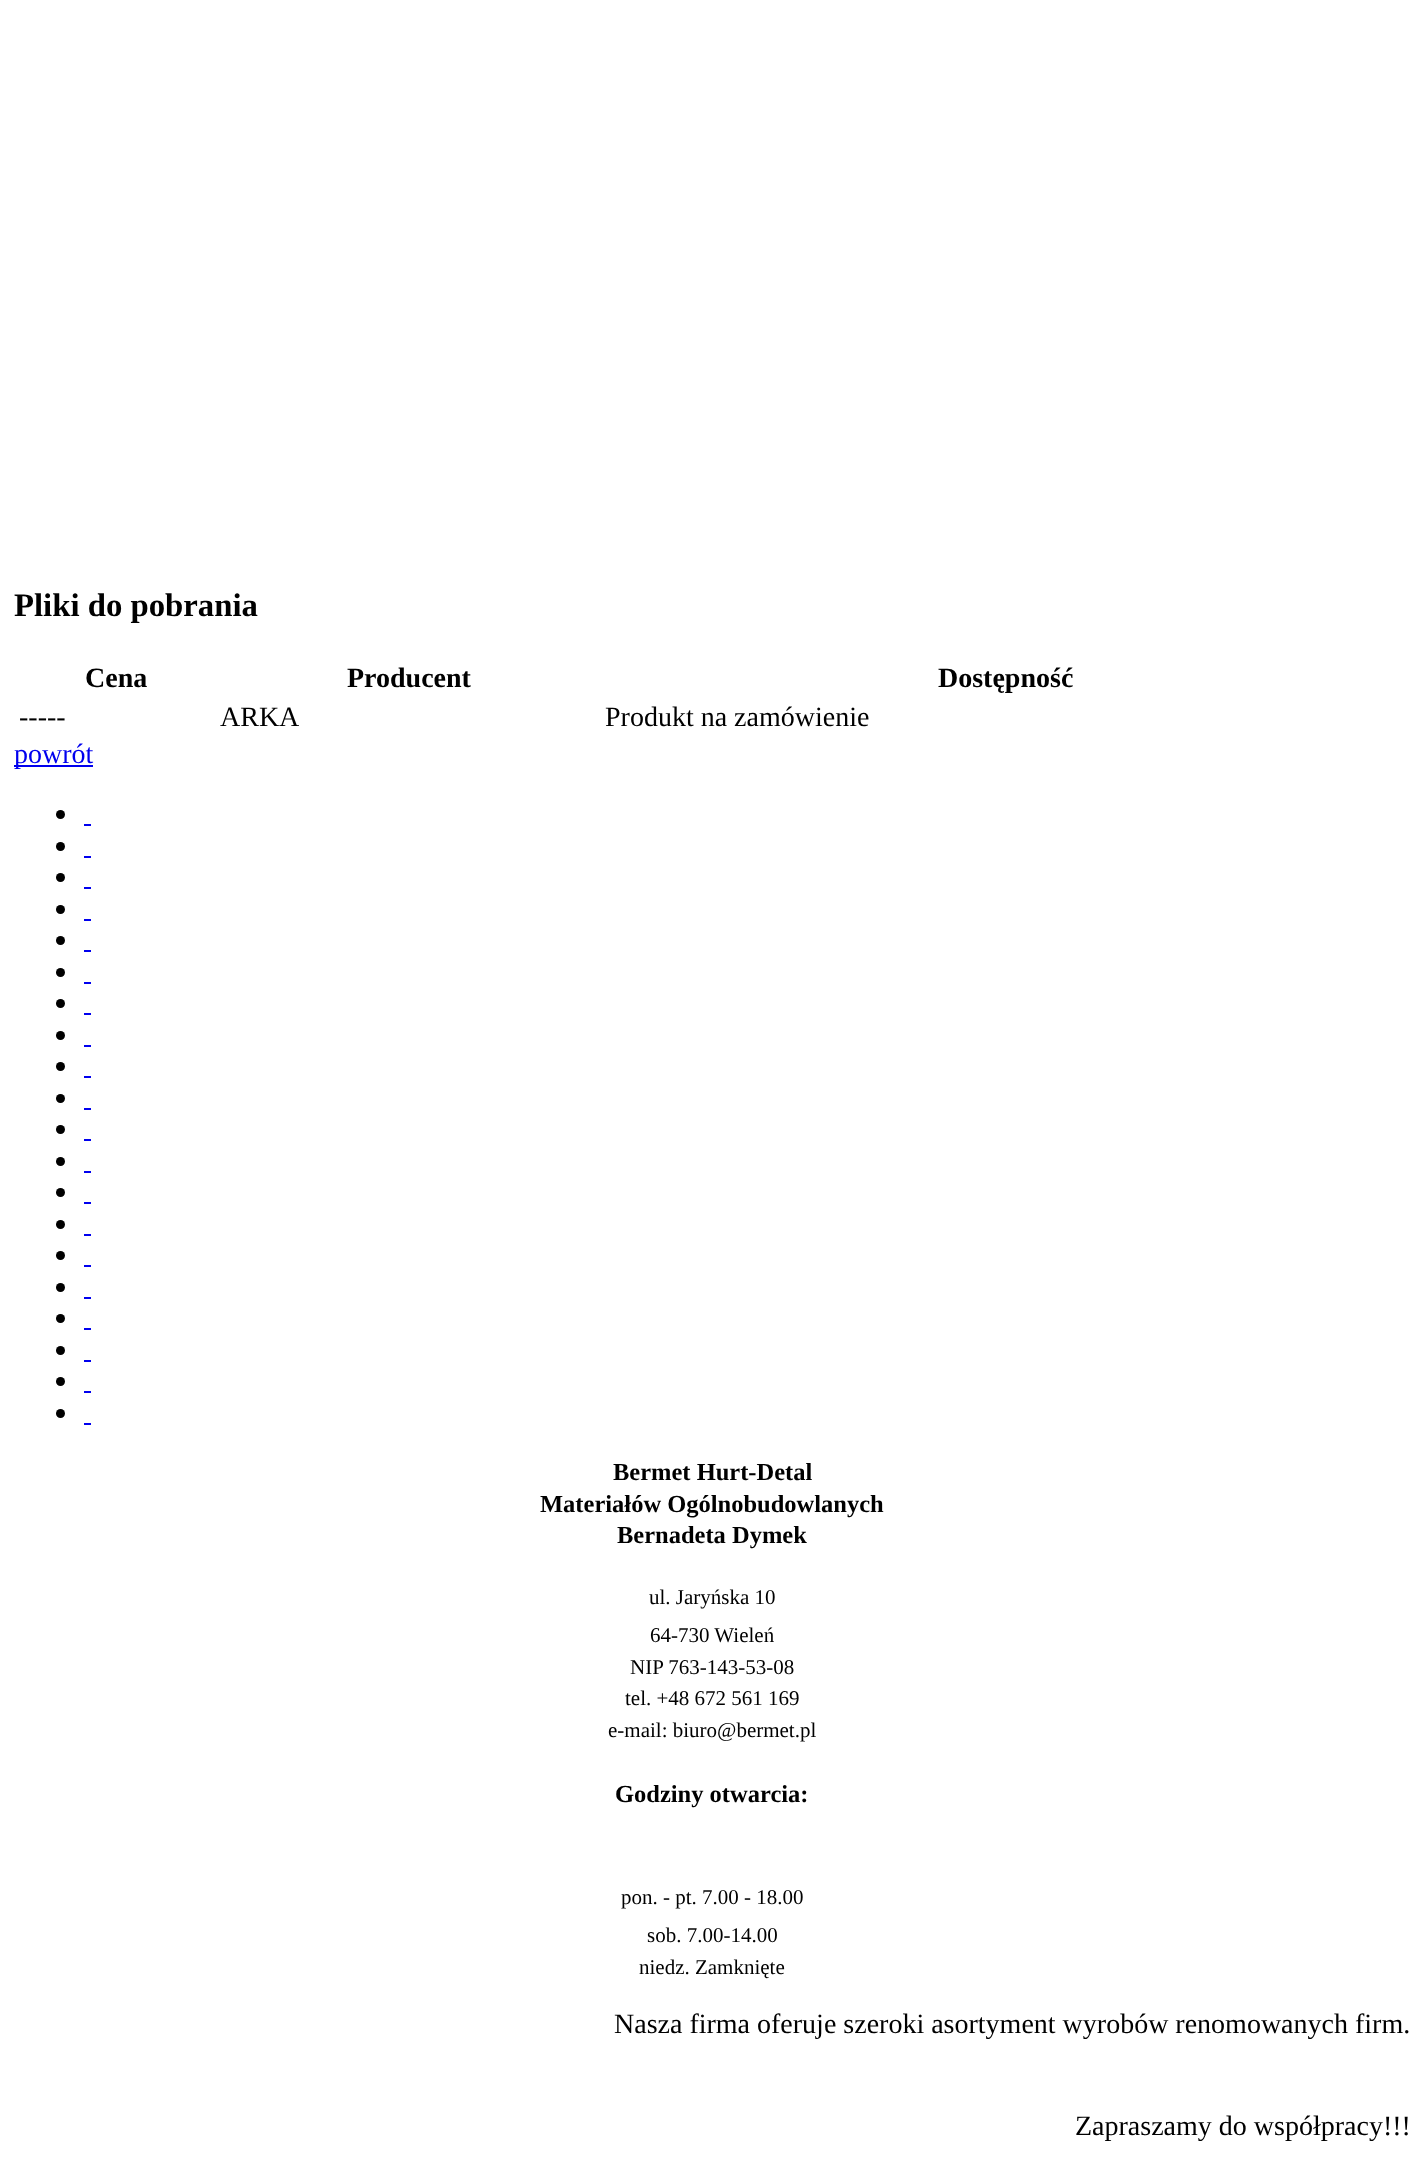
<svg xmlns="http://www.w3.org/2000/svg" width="1423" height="2166">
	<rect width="100%" height="100%" fill="#FFFFFF" />
	<text x="14" y="616" font-family="Liberation Serif" font-size="32.75" font-weight="700" fill="#000000">Pliki do pobrania</text>
	<g font-family="Liberation Serif" font-size="28" font-weight="700" fill="#000000">
		<text x="85" y="687">Cena</text>
		<text x="347" y="687">Producent</text>
		<text x="938" y="687">Dostępność</text>
	</g>
	<g font-family="Liberation Serif" font-size="28" fill="#000000">
		<text x="19" y="726">-----</text>
		<text x="220" y="726">ARKA</text>
		<text x="605" y="726">Produkt na zamówienie</text>
	</g>
	<rect x="14" y="765" width="79" height="2" fill="#0000EE" />
	<text x="14" y="763" font-family="Liberation Serif" font-size="28" fill="#0000EE">powrót</text>
	<circle cx="60.5" cy="814.5" r="4.5" fill="#000000" />
	<rect x="84" y="824" width="7" height="2" fill="#0000EE" />
	<circle cx="60.5" cy="846.5" r="4.5" fill="#000000" />
	<rect x="84" y="856" width="7" height="2" fill="#0000EE" />
	<circle cx="60.5" cy="877.5" r="4.5" fill="#000000" />
	<rect x="84" y="887" width="7" height="2" fill="#0000EE" />
	<circle cx="60.5" cy="909.5" r="4.5" fill="#000000" />
	<rect x="84" y="919" width="7" height="2" fill="#0000EE" />
	<circle cx="60.5" cy="940.5" r="4.5" fill="#000000" />
	<rect x="84" y="950" width="7" height="2" fill="#0000EE" />
	<circle cx="60.5" cy="972.5" r="4.5" fill="#000000" />
	<rect x="84" y="982" width="7" height="2" fill="#0000EE" />
	<circle cx="60.5" cy="1003.5" r="4.5" fill="#000000" />
	<rect x="84" y="1013" width="7" height="2" fill="#0000EE" />
	<circle cx="60.5" cy="1035.5" r="4.5" fill="#000000" />
	<rect x="84" y="1045" width="7" height="2" fill="#0000EE" />
	<circle cx="60.5" cy="1066.5" r="4.5" fill="#000000" />
	<rect x="84" y="1076" width="7" height="2" fill="#0000EE" />
	<circle cx="60.5" cy="1098.5" r="4.5" fill="#000000" />
	<rect x="84" y="1108" width="7" height="2" fill="#0000EE" />
	<circle cx="60.5" cy="1129.5" r="4.5" fill="#000000" />
	<rect x="84" y="1139" width="7" height="2" fill="#0000EE" />
	<circle cx="60.5" cy="1161.5" r="4.5" fill="#000000" />
	<rect x="84" y="1171" width="7" height="2" fill="#0000EE" />
	<circle cx="60.5" cy="1192.5" r="4.5" fill="#000000" />
	<rect x="84" y="1202" width="7" height="2" fill="#0000EE" />
	<circle cx="60.5" cy="1224.5" r="4.5" fill="#000000" />
	<rect x="84" y="1234" width="7" height="2" fill="#0000EE" />
	<circle cx="60.5" cy="1255.5" r="4.5" fill="#000000" />
	<rect x="84" y="1265" width="7" height="2" fill="#0000EE" />
	<circle cx="60.5" cy="1287.5" r="4.5" fill="#000000" />
	<rect x="84" y="1297" width="7" height="2" fill="#0000EE" />
	<circle cx="60.5" cy="1318.5" r="4.5" fill="#000000" />
	<rect x="84" y="1328" width="7" height="2" fill="#0000EE" />
	<circle cx="60.5" cy="1350.5" r="4.5" fill="#000000" />
	<rect x="84" y="1360" width="7" height="2" fill="#0000EE" />
	<circle cx="60.5" cy="1381.5" r="4.5" fill="#000000" />
	<rect x="84" y="1391" width="7" height="2" fill="#0000EE" />
	<circle cx="60.5" cy="1413.5" r="4.5" fill="#000000" />
	<rect x="84" y="1423" width="7" height="2" fill="#0000EE" />
	<g font-family="Liberation Serif" font-size="24.5" font-weight="700" fill="#000000">
		<text x="613" y="1480">Bermet Hurt-Detal</text>
		<text x="540" y="1512">Materiałów Ogólnobudowlanych</text>
		<text x="617" y="1543">Bernadeta Dymek</text>
	</g>
	<g font-family="Liberation Serif" font-size="21" fill="#000000">
		<text x="649" y="1604">ul. Jaryńska 10</text>
		<text x="650" y="1642">64-730 Wieleń</text>
		<text x="630" y="1674">NIP 763-143-53-08</text>
		<text x="625" y="1705">tel. +48 672 561 169</text>
		<text x="608" y="1737">e-mail: biuro@bermet.pl</text>
	</g>
	<text x="615" y="1802" font-family="Liberation Serif" font-size="24.5" font-weight="700" fill="#000000">Godziny otwarcia:</text>
	<g font-family="Liberation Serif" font-size="21" fill="#000000">
		<text x="621" y="1904">pon. - pt. 7.00 - 18.00</text>
		<text x="647" y="1942">sob. 7.00-14.00</text>
		<text x="639" y="1974">niedz. Zamknięte</text>
	</g>
	<g font-family="Liberation Serif" font-size="28" fill="#000000">
		<text x="614" y="2033">Nasza firma oferuje szeroki asortyment wyrobów renomowanych firm.</text>
		<text x="1075" y="2135">Zapraszamy do współpracy!!!</text>
	</g>
</svg>
